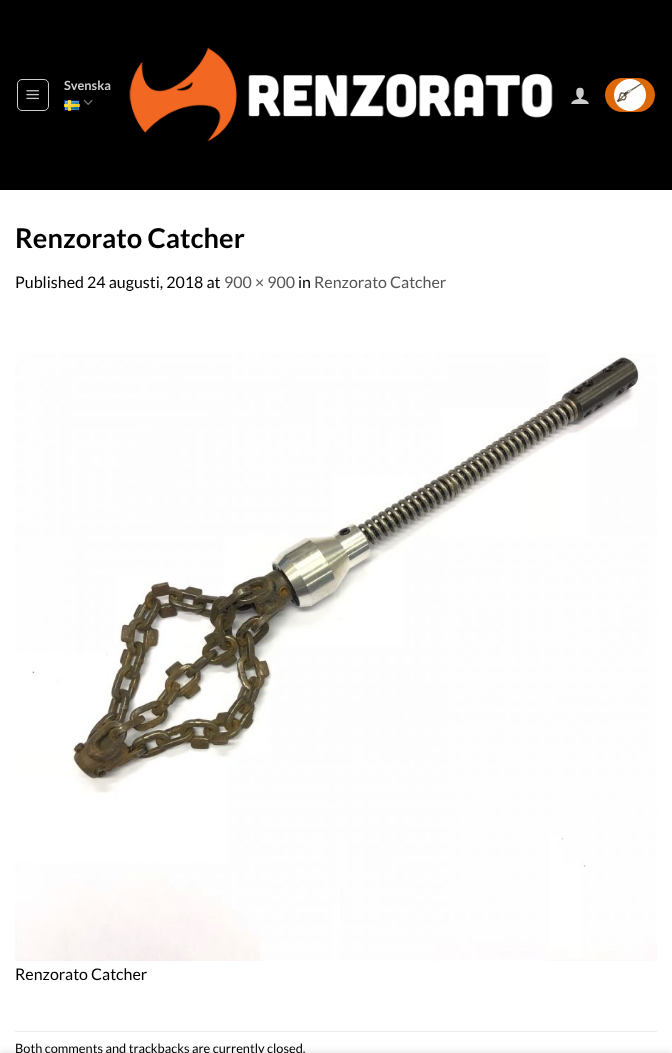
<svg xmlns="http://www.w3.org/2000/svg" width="672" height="1053">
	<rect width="100%" height="100%" fill="#FFFFFF" />
	<rect x="0" y="0" width="672" height="190" fill="#000000" />
	<rect x="17.5" y="79.5" width="31" height="31" rx="4.5" fill="none" stroke="#CCCCCC" />
	<image x="26" y="90" width="13" height="10" href="assets/img1.png" />
	<text x="64" y="90" font-family="Lato" font-size="12.8" font-weight="700" fill="#CCCCCC">Svenska</text>
	<image x="64" y="100" width="16" height="11" href="assets/img2.png" />
	<image x="83" y="99" width="10" height="6" href="assets/img3.png" />
	<image x="129" y="47" width="424" height="95" href="assets/img4.png" />
	<image x="571" y="87" width="18" height="17" href="assets/img5.png" />
	<rect x="605" y="78" width="50" height="34" rx="17" fill="#DD6808" />
	<rect x="605.5" y="78.5" width="49" height="33" fill="none" stroke="#000000" stroke-opacity="0.05" />
	<image x="614" y="79" width="32" height="32" href="assets/img6.png" />
	<text x="15" y="248" font-family="Lato" font-size="27.25" font-weight="700" fill="#000000">Renzorato Catcher</text>
	<text x="15" y="288" font-family="Lato" font-size="16" fill="#000000">Published 24 augusti, 2018 at</text>
	<text x="224" y="288" font-family="Lato" font-size="16" fill="#555555">900 × 900</text>
	<text x="298" y="288" font-family="Lato" font-size="16" fill="#000000">in</text>
	<text x="314" y="288" font-family="Lato" font-size="16" fill="#555555">Renzorato Catcher</text>
	<image x="15" y="353" width="642" height="608" href="assets/img7.png" />
	<text x="15" y="980" font-family="Lato" font-size="16" fill="#000000">Renzorato Catcher</text>
	<rect x="15" y="1031" width="642" height="1" fill="#ECECEC" />
	<text x="15" y="1053" font-family="Lato" font-size="12.8" fill="#000000">Both comments and trackbacks are currently closed.</text>
	<rect x="0" y="1053" width="672" height="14" fill="#000000" fill-opacity="0.14" filter="blur(4.5px)" />
</svg>
